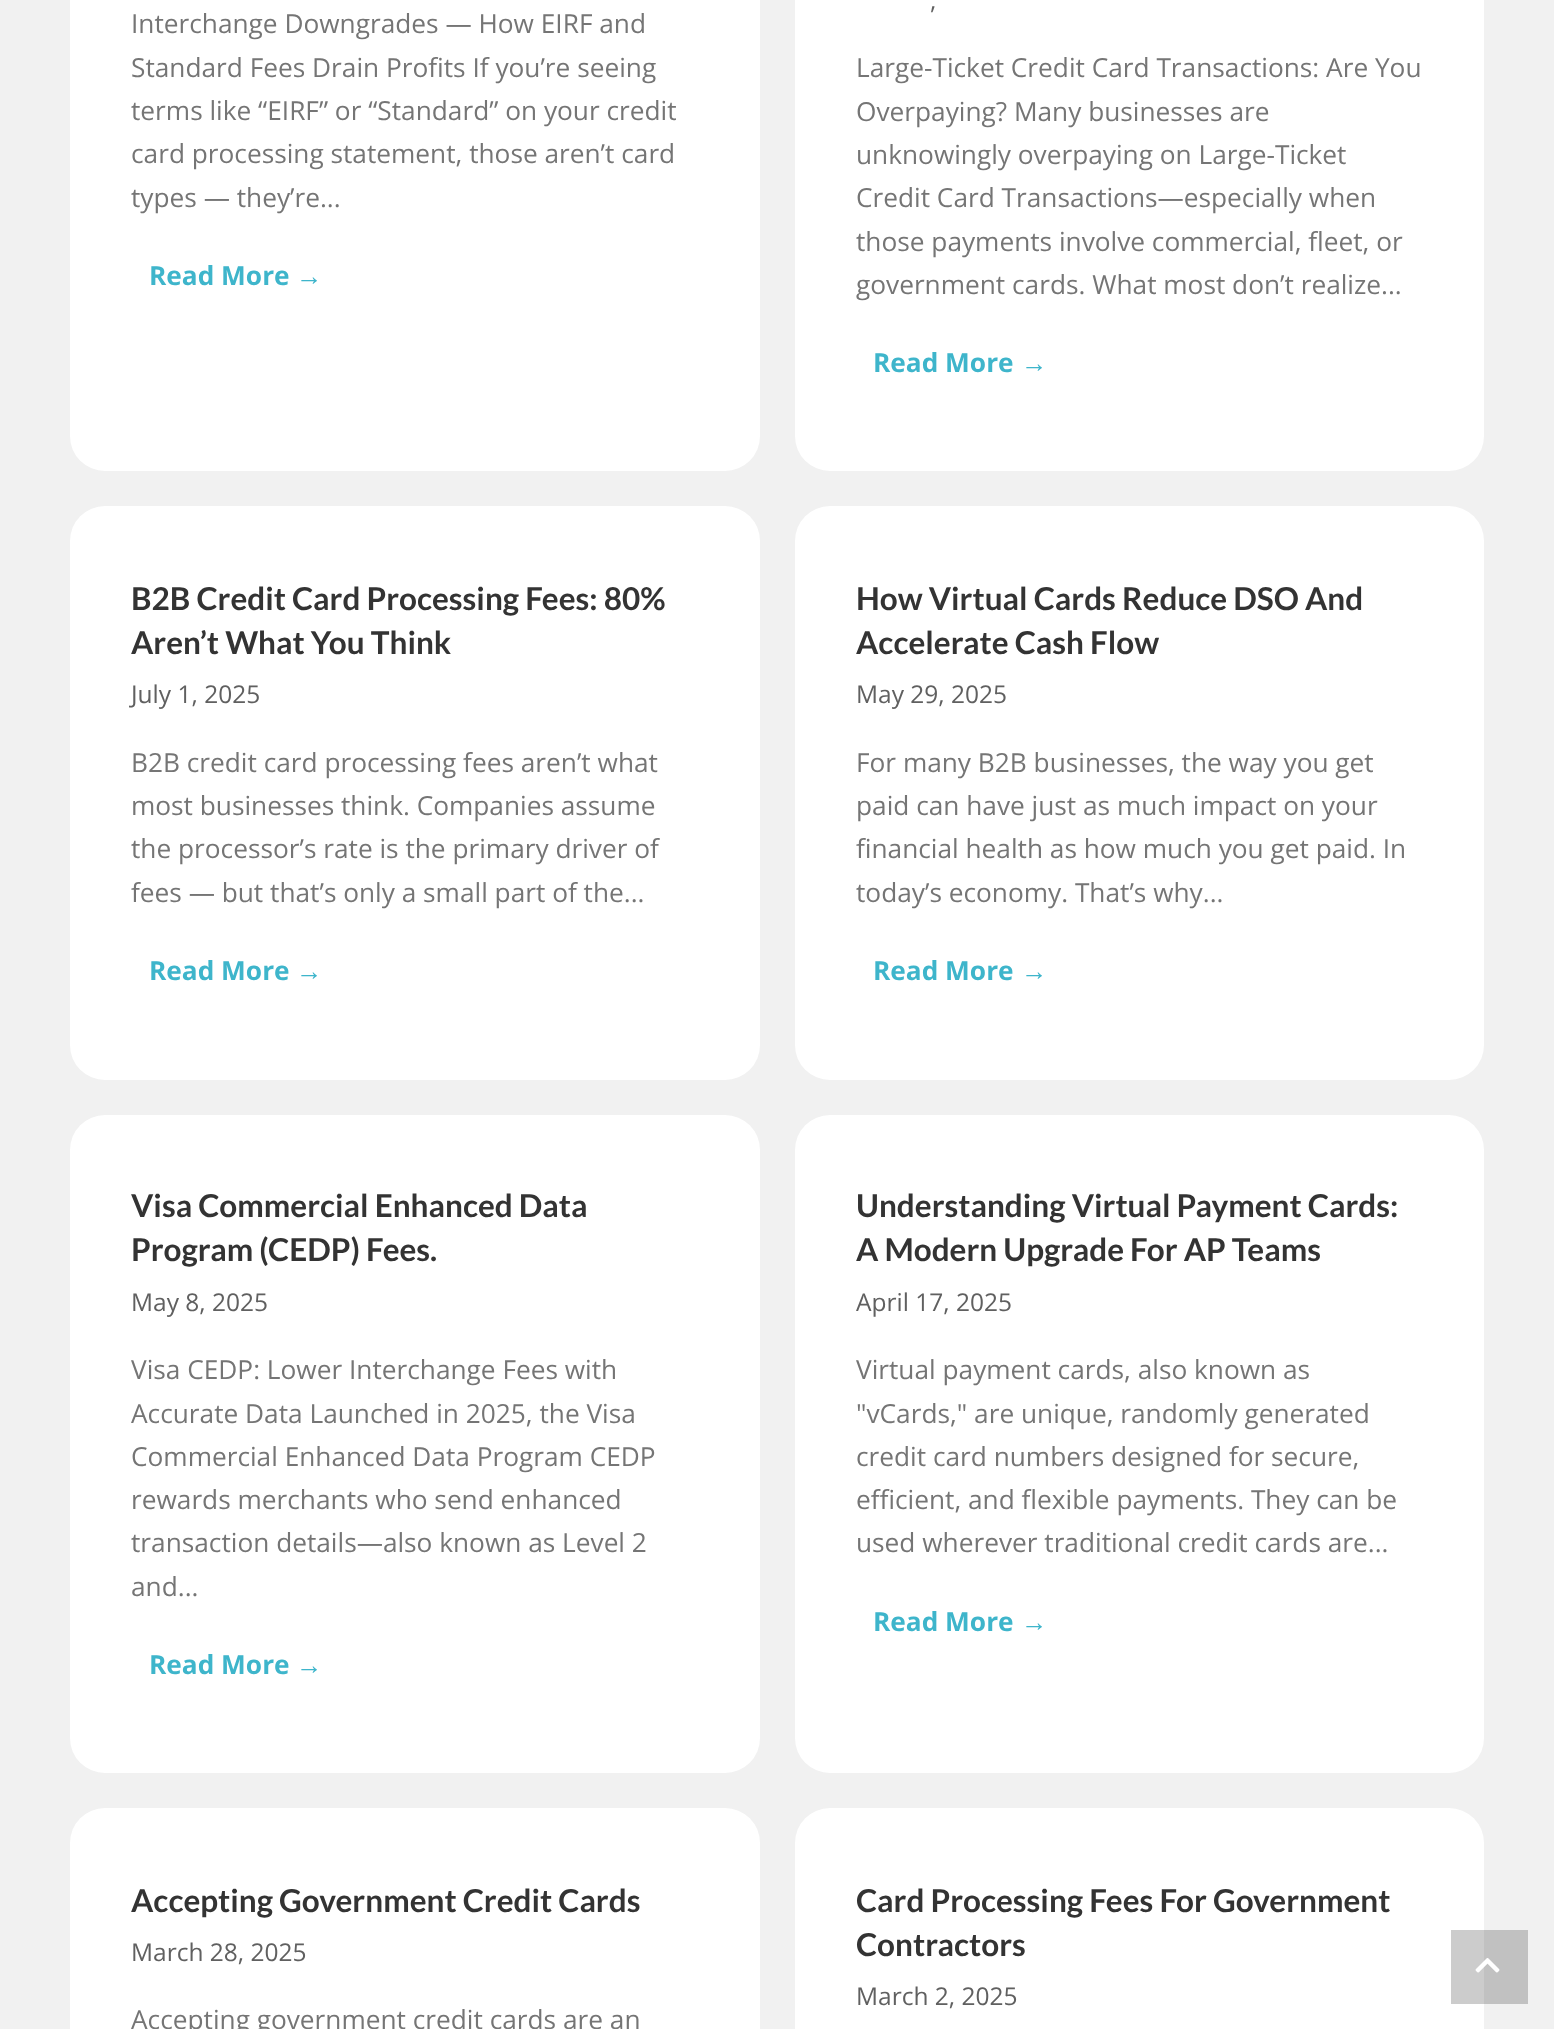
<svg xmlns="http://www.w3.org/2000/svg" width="1554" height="2029">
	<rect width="100%" height="100%" fill="#F1F1F1" />
	<rect x="1484" y="1930" width="44" height="74" fill="#C1C1C1" />
	<rect x="70" y="-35" width="690" height="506" rx="35" fill="#FFFFFF" />
	<g font-family="Open Sans" font-size="26.25" fill="#757575">
		<text x="131" y="33">Interchange Downgrades — How EIRF and</text>
		<text x="131" y="77">Standard Fees Drain Profits If you’re seeing</text>
		<text x="131" y="120">terms like “EIRF” or “Standard” on your credit</text>
		<text x="131" y="163">card processing statement, those aren’t card</text>
		<text x="131" y="207">types — they’re...</text>
	</g>
	<text x="149" y="285" font-family="Open Sans" font-size="26.25" font-weight="700" fill="#3EB5CB">Read More</text>
	<text x="296" y="285" font-family="Liberation Sans" font-size="26.25" font-weight="700" fill="#3EB5CB">→</text>
	<rect x="795" y="-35" width="689" height="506" rx="35" fill="#FFFFFF" />
	<text x="930" y="9" font-family="Open Sans" font-size="24.5" fill="#606060">,</text>
	<g font-family="Open Sans" font-size="26.25" fill="#757575">
		<text x="856" y="77">Large-Ticket Credit Card Transactions: Are You</text>
		<text x="856" y="121">Overpaying? Many businesses are</text>
		<text x="856" y="164">unknowingly overpaying on Large-Ticket</text>
		<text x="856" y="207">Credit Card Transactions—especially when</text>
		<text x="856" y="251">those payments involve commercial, fleet, or</text>
		<text x="856" y="294">government cards. What most don’t realize...</text>
	</g>
	<text x="873" y="372" font-family="Open Sans" font-size="26.25" font-weight="700" fill="#3EB5CB">Read More</text>
	<text x="1021" y="372" font-family="Liberation Sans" font-size="26.25" font-weight="700" fill="#3EB5CB">→</text>
	<rect x="70" y="506" width="690" height="574" rx="35" fill="#FFFFFF" />
	<g font-family="Lato" font-size="31.5" font-weight="700" fill="#333333">
		<text x="131" y="610">B2B Credit Card Processing Fees: 80%</text>
		<text x="131" y="654">Aren’t What You Think</text>
	</g>
	<text x="131" y="703" font-family="Open Sans" font-size="24.5" fill="#606060">July 1, 2025</text>
	<g font-family="Open Sans" font-size="26.25" fill="#757575">
		<text x="131" y="772">B2B credit card processing fees aren’t what</text>
		<text x="131" y="815">most businesses think. Companies assume</text>
		<text x="131" y="858">the processor’s rate is the primary driver of</text>
		<text x="131" y="902">fees — but that’s only a small part of the...</text>
	</g>
	<text x="149" y="980" font-family="Open Sans" font-size="26.25" font-weight="700" fill="#3EB5CB">Read More</text>
	<text x="296" y="980" font-family="Liberation Sans" font-size="26.25" font-weight="700" fill="#3EB5CB">→</text>
	<rect x="795" y="506" width="689" height="574" rx="35" fill="#FFFFFF" />
	<g font-family="Lato" font-size="31.5" font-weight="700" fill="#333333">
		<text x="856" y="610">How Virtual Cards Reduce DSO And</text>
		<text x="856" y="654">Accelerate Cash Flow</text>
	</g>
	<text x="856" y="703" font-family="Open Sans" font-size="24.5" fill="#606060">May 29, 2025</text>
	<g font-family="Open Sans" font-size="26.25" fill="#757575">
		<text x="856" y="772">For many B2B businesses, the way you get</text>
		<text x="856" y="815">paid can have just as much impact on your</text>
		<text x="856" y="858">financial health as how much you get paid. In</text>
		<text x="856" y="902">today’s economy. That’s why...</text>
	</g>
	<text x="873" y="980" font-family="Open Sans" font-size="26.25" font-weight="700" fill="#3EB5CB">Read More</text>
	<text x="1021" y="980" font-family="Liberation Sans" font-size="26.25" font-weight="700" fill="#3EB5CB">→</text>
	<rect x="70" y="1115" width="690" height="658" rx="35" fill="#FFFFFF" />
	<g font-family="Lato" font-size="31.5" font-weight="700" fill="#333333">
		<text x="131" y="1217">Visa Commercial Enhanced Data</text>
		<text x="131" y="1261">Program (CEDP) Fees.</text>
	</g>
	<text x="131" y="1311" font-family="Open Sans" font-size="24.5" fill="#606060">May 8, 2025</text>
	<g font-family="Open Sans" font-size="26.25" fill="#757575">
		<text x="131" y="1379">Visa CEDP: Lower Interchange Fees with</text>
		<text x="131" y="1423">Accurate Data Launched in 2025, the Visa</text>
		<text x="131" y="1466">Commercial Enhanced Data Program CEDP</text>
		<text x="131" y="1509">rewards merchants who send enhanced</text>
		<text x="131" y="1552">transaction details—also known as Level 2</text>
		<text x="131" y="1596">and...</text>
	</g>
	<text x="149" y="1674" font-family="Open Sans" font-size="26.25" font-weight="700" fill="#3EB5CB">Read More</text>
	<text x="296" y="1674" font-family="Liberation Sans" font-size="26.25" font-weight="700" fill="#3EB5CB">→</text>
	<rect x="795" y="1115" width="689" height="658" rx="35" fill="#FFFFFF" />
	<g font-family="Lato" font-size="31.5" font-weight="700" fill="#333333">
		<text x="856" y="1217">Understanding Virtual Payment Cards:</text>
		<text x="856" y="1261">A Modern Upgrade For AP Teams</text>
	</g>
	<text x="856" y="1311" font-family="Open Sans" font-size="24.5" fill="#606060">April 17, 2025</text>
	<g font-family="Open Sans" font-size="26.25" fill="#757575">
		<text x="856" y="1379">Virtual payment cards, also known as</text>
		<text x="856" y="1423">"vCards," are unique, randomly generated</text>
		<text x="856" y="1466">credit card numbers designed for secure,</text>
		<text x="856" y="1509">efficient, and flexible payments. They can be</text>
		<text x="856" y="1552">used wherever traditional credit cards are...</text>
	</g>
	<text x="873" y="1631" font-family="Open Sans" font-size="26.25" font-weight="700" fill="#3EB5CB">Read More</text>
	<text x="1021" y="1631" font-family="Liberation Sans" font-size="26.25" font-weight="700" fill="#3EB5CB">→</text>
	<rect x="70" y="1808" width="690" height="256" rx="35" fill="#FFFFFF" />
	<text x="131" y="1912" font-family="Lato" font-size="31.5" font-weight="700" fill="#333333">Accepting Government Credit Cards</text>
	<text x="131" y="1961" font-family="Open Sans" font-size="24.5" fill="#606060">March 28, 2025</text>
	<text x="131" y="2029" font-family="Open Sans" font-size="26.25" fill="#757575">Accepting government credit cards are an</text>
	<rect x="795" y="1808" width="689" height="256" rx="35" fill="#FFFFFF" />
	<rect x="1451" y="1930" width="33" height="74" fill="#CCCCCC" />
	<g font-family="Lato" font-size="31.5" font-weight="700" fill="#333333">
		<text x="856" y="1912">Card Processing Fees For Government</text>
		<text x="856" y="1956">Contractors</text>
	</g>
	<text x="856" y="2005" font-family="Open Sans" font-size="24.5" fill="#606060">March 2, 2025</text>
	<image x="1475" y="1958" width="25" height="15" href="assets/img1.png" />
</svg>
